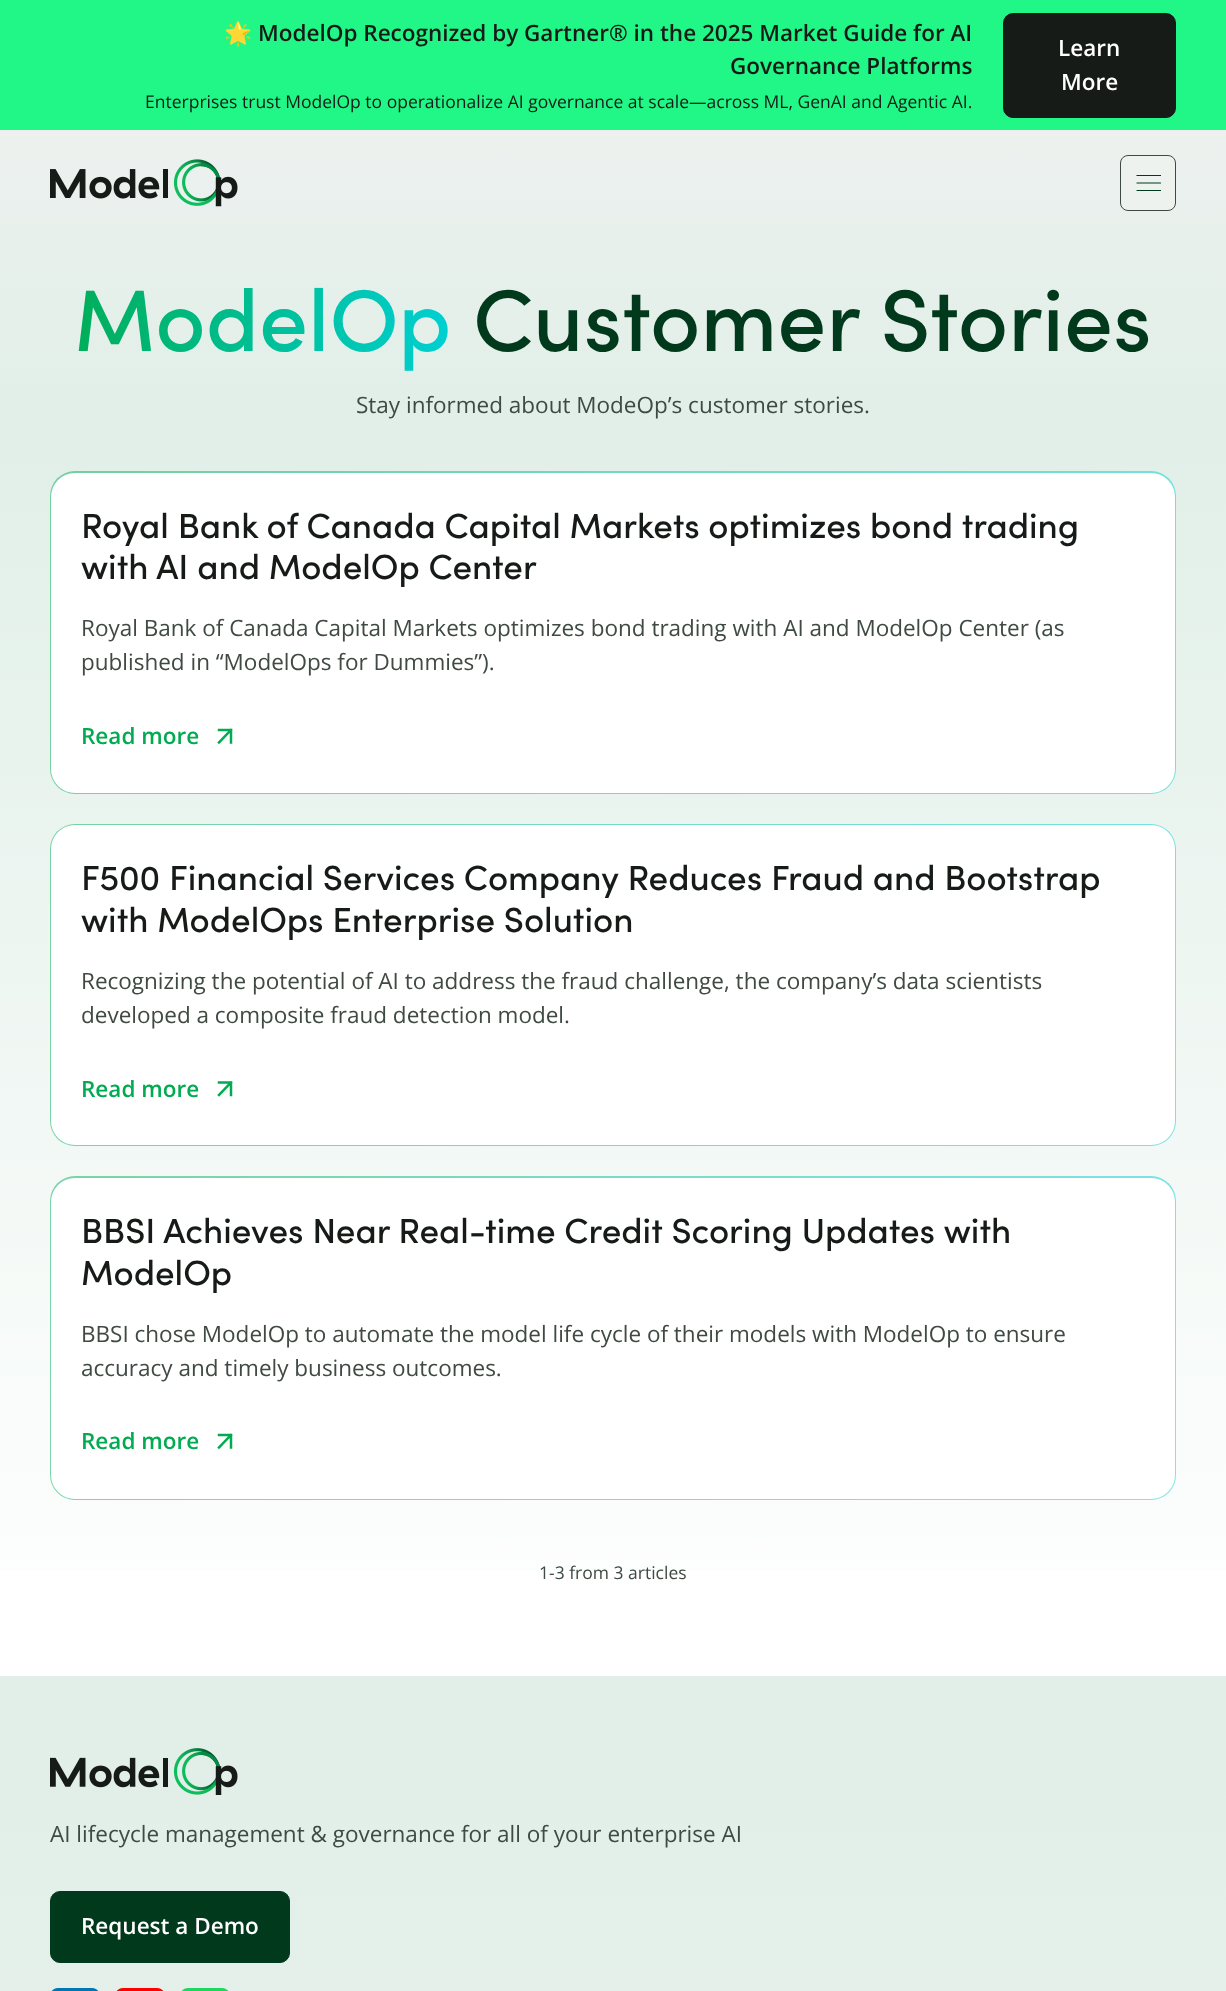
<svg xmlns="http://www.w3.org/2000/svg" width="1226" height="1991">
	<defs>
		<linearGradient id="g1" gradientUnits="userSpaceOnUse" x1="613" y1="0" x2="613" y2="421"><stop offset="0" stop-color="#F2F2F2" /><stop offset="1" stop-color="#E1EFE8" /></linearGradient>
		<clipPath id="clip1"><rect x="1136" y="175" width="25" height="16" /></clipPath>
		<linearGradient id="g2" gradientUnits="userSpaceOnUse" x1="74" y1="313" x2="452" y2="313"><stop offset="0" stop-color="#00AE5A" /><stop offset="0.97" stop-color="#00CFCF" /></linearGradient>
		<linearGradient id="g3" gradientUnits="userSpaceOnUse" x1="613" y1="421" x2="613" y2="1676"><stop offset="0" stop-color="#E1EFE8" /><stop offset="1" stop-color="#FFFFFF" /></linearGradient>
		<linearGradient id="g4" gradientUnits="userSpaceOnUse" x1="50" y1="633" x2="1176" y2="633"><stop offset="0" stop-color="#00AE5A" stop-opacity="0.5" /><stop offset="0.97" stop-color="#00CFCF" stop-opacity="0.5" /></linearGradient>
		<linearGradient id="g5" gradientUnits="userSpaceOnUse" x1="50" y1="985" x2="1176" y2="985"><stop offset="0" stop-color="#00AE5A" stop-opacity="0.5" /><stop offset="0.97" stop-color="#00CFCF" stop-opacity="0.5" /></linearGradient>
		<linearGradient id="g6" gradientUnits="userSpaceOnUse" x1="50" y1="1338" x2="1176" y2="1338"><stop offset="0" stop-color="#00AE5A" stop-opacity="0.5" /><stop offset="0.97" stop-color="#00CFCF" stop-opacity="0.5" /></linearGradient>
		<linearGradient id="g7" gradientUnits="userSpaceOnUse" x1="613" y1="1676" x2="613" y2="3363"><stop offset="0" stop-color="#E1EFE8" /><stop offset="1" stop-color="#F2F2F2" /></linearGradient>
	</defs>
	<rect width="100%" height="100%" fill="#FFFFFF" />
	<rect x="0" y="0" width="1226" height="130" fill="#21F787" />
	<text x="224" y="41" font-family="Noto Color Emoji" font-size="22.5" font-weight="700" fill="#161B18">🌟</text>
	<g font-family="Open Sans" font-size="22.5" font-weight="600" fill="#161B18">
		<text x="258" y="41">ModelOp Recognized by Gartner® in the 2025 Market Guide for AI</text>
		<text x="730" y="74">Governance Platforms</text>
	</g>
	<text x="145" y="108" font-family="Open Sans" font-size="17.5" fill="#161B18">Enterprises trust ModelOp to operationalize AI governance at scale—across ML, GenAI and Agentic AI.</text>
	<rect x="1003.5" y="13.5" width="172" height="104" rx="9.5" fill="#161B18" stroke="#161B18" />
	<g font-family="Open Sans" font-size="22.5" font-weight="600" fill="#FFFFFF">
		<text x="1058" y="56">Learn</text>
		<text x="1061" y="90">More</text>
	</g>
	<rect x="0" y="130" width="1226" height="291" fill="url(#g1)" />
	<image x="50" y="159" width="188" height="48" href="assets/img1.png" />
	<rect x="1120.5" y="155.5" width="55" height="55" rx="7.5" fill="#EDF2EF" stroke="#3F4A43" />
	<g clip-path="url(#clip1)">
		<path d="M1137 175.5H1160.5" fill="none" stroke="#00391B" stroke-width="1.2" stroke-linecap="round" />
	</g>
	<path d="M1137 183H1160.5" fill="none" stroke="#00391B" stroke-width="1.2" stroke-linecap="round" />
	<g clip-path="url(#clip1)">
		<path d="M1137 190.5H1160.5" fill="none" stroke="#00391B" stroke-width="1.2" stroke-linecap="round" />
	</g>
	<text x="74" y="351" font-family="Sofia" font-size="87.5" font-weight="500" fill="url(#g2)">ModelOp</text>
	<text x="473" y="351" font-family="Sofia" font-size="87.5" font-weight="500" fill="#00391B">Customer Stories</text>
	<text x="356" y="413" font-family="Open Sans" font-size="22.5" fill="#3F4A43">Stay informed about ModeOp’s customer stories.</text>
	<rect x="0" y="421" width="1226" height="1150" fill="url(#g3)" />
	<rect x="50" y="471" width="1126" height="323" rx="25" fill="url(#g4)" />
	<rect x="51" y="473" width="1124" height="320" rx="24" fill="#FFFFFF" />
	<g font-family="Sofia" font-size="35" font-weight="500" fill="#161B18">
		<text x="81" y="538">Royal Bank of Canada Capital Markets optimizes bond trading</text>
		<text x="81" y="579">with AI and ModelOp Center</text>
	</g>
	<g font-family="Open Sans" font-size="22.5" fill="#3F4A43">
		<text x="81" y="636">Royal Bank of Canada Capital Markets optimizes bond trading with AI and ModelOp Center (as</text>
		<text x="81" y="670">published in “ModelOps for Dummies”).</text>
	</g>
	<text x="81" y="744" font-family="Open Sans" font-size="22.5" font-weight="600" fill="#00AB51">Read more</text>
	<path d="M219 730H231M231 730V742.5M231 730L219 742.5" fill="none" stroke="#00AB51" stroke-width="2.5" stroke-linecap="square" />
	<rect x="50" y="824" width="1126" height="322" rx="25" fill="url(#g5)" />
	<rect x="51" y="825" width="1124" height="320" rx="24" fill="#FFFFFF" />
	<g font-family="Sofia" font-size="35" font-weight="500" fill="#161B18">
		<text x="81" y="890">F500 Financial Services Company Reduces Fraud and Bootstrap</text>
		<text x="81" y="932">with ModelOps Enterprise Solution</text>
	</g>
	<g font-family="Open Sans" font-size="22.5" fill="#3F4A43">
		<text x="81" y="989">Recognizing the potential of AI to address the fraud challenge, the company’s data scientists</text>
		<text x="81" y="1023">developed a composite fraud detection model.</text>
	</g>
	<text x="81" y="1097" font-family="Open Sans" font-size="22.5" font-weight="600" fill="#00AB51">Read more</text>
	<path d="M219 1082.5H231M231 1082.5V1095M231 1082.5L219 1095" fill="none" stroke="#00AB51" stroke-width="2.5" stroke-linecap="square" />
	<rect x="50" y="1176" width="1126" height="324" rx="25" fill="url(#g6)" />
	<rect x="51" y="1178" width="1124" height="321" rx="24" fill="#FFFFFF" />
	<g font-family="Sofia" font-size="35" font-weight="500" fill="#161B18">
		<text x="81" y="1243">BBSI Achieves Near Real-time Credit Scoring Updates with</text>
		<text x="81" y="1285">ModelOp</text>
	</g>
	<g font-family="Open Sans" font-size="22.5" fill="#3F4A43">
		<text x="81" y="1342">BBSI chose ModelOp to automate the model life cycle of their models with ModelOp to ensure</text>
		<text x="81" y="1376">accuracy and timely business outcomes.</text>
	</g>
	<text x="81" y="1449" font-family="Open Sans" font-size="22.5" font-weight="600" fill="#00AB51">Read more</text>
	<path d="M219 1435H231M231 1435V1447.5M231 1435L219 1447.5" fill="none" stroke="#00AB51" stroke-width="2.5" stroke-linecap="square" />
	<text x="539" y="1579" font-family="Open Sans" font-size="17.5" fill="#3F4A43">1-3 from 3 articles</text>
	<rect x="0" y="1676" width="1226" height="315" fill="url(#g7)" />
	<image x="50" y="1748" width="188" height="47" href="assets/img2.png" />
	<text x="50" y="1842" font-family="Open Sans" font-size="22.5" fill="#3F4A43">AI lifecycle management &amp; governance for all of your enterprise AI</text>
	<rect x="50.5" y="1891.5" width="239" height="71" rx="9.5" fill="#00391B" stroke="#00391B" />
	<text x="81" y="1934" font-family="Open Sans" font-size="22.5" font-weight="600" fill="#FFFFFF">Request a Demo</text>
	<image x="51" y="1988" width="48" height="3" href="assets/img3.png" />
	<image x="116" y="1988" width="48" height="3" href="assets/img4.png" />
	<image x="181" y="1988" width="48" height="3" href="assets/img5.png" />
</svg>
